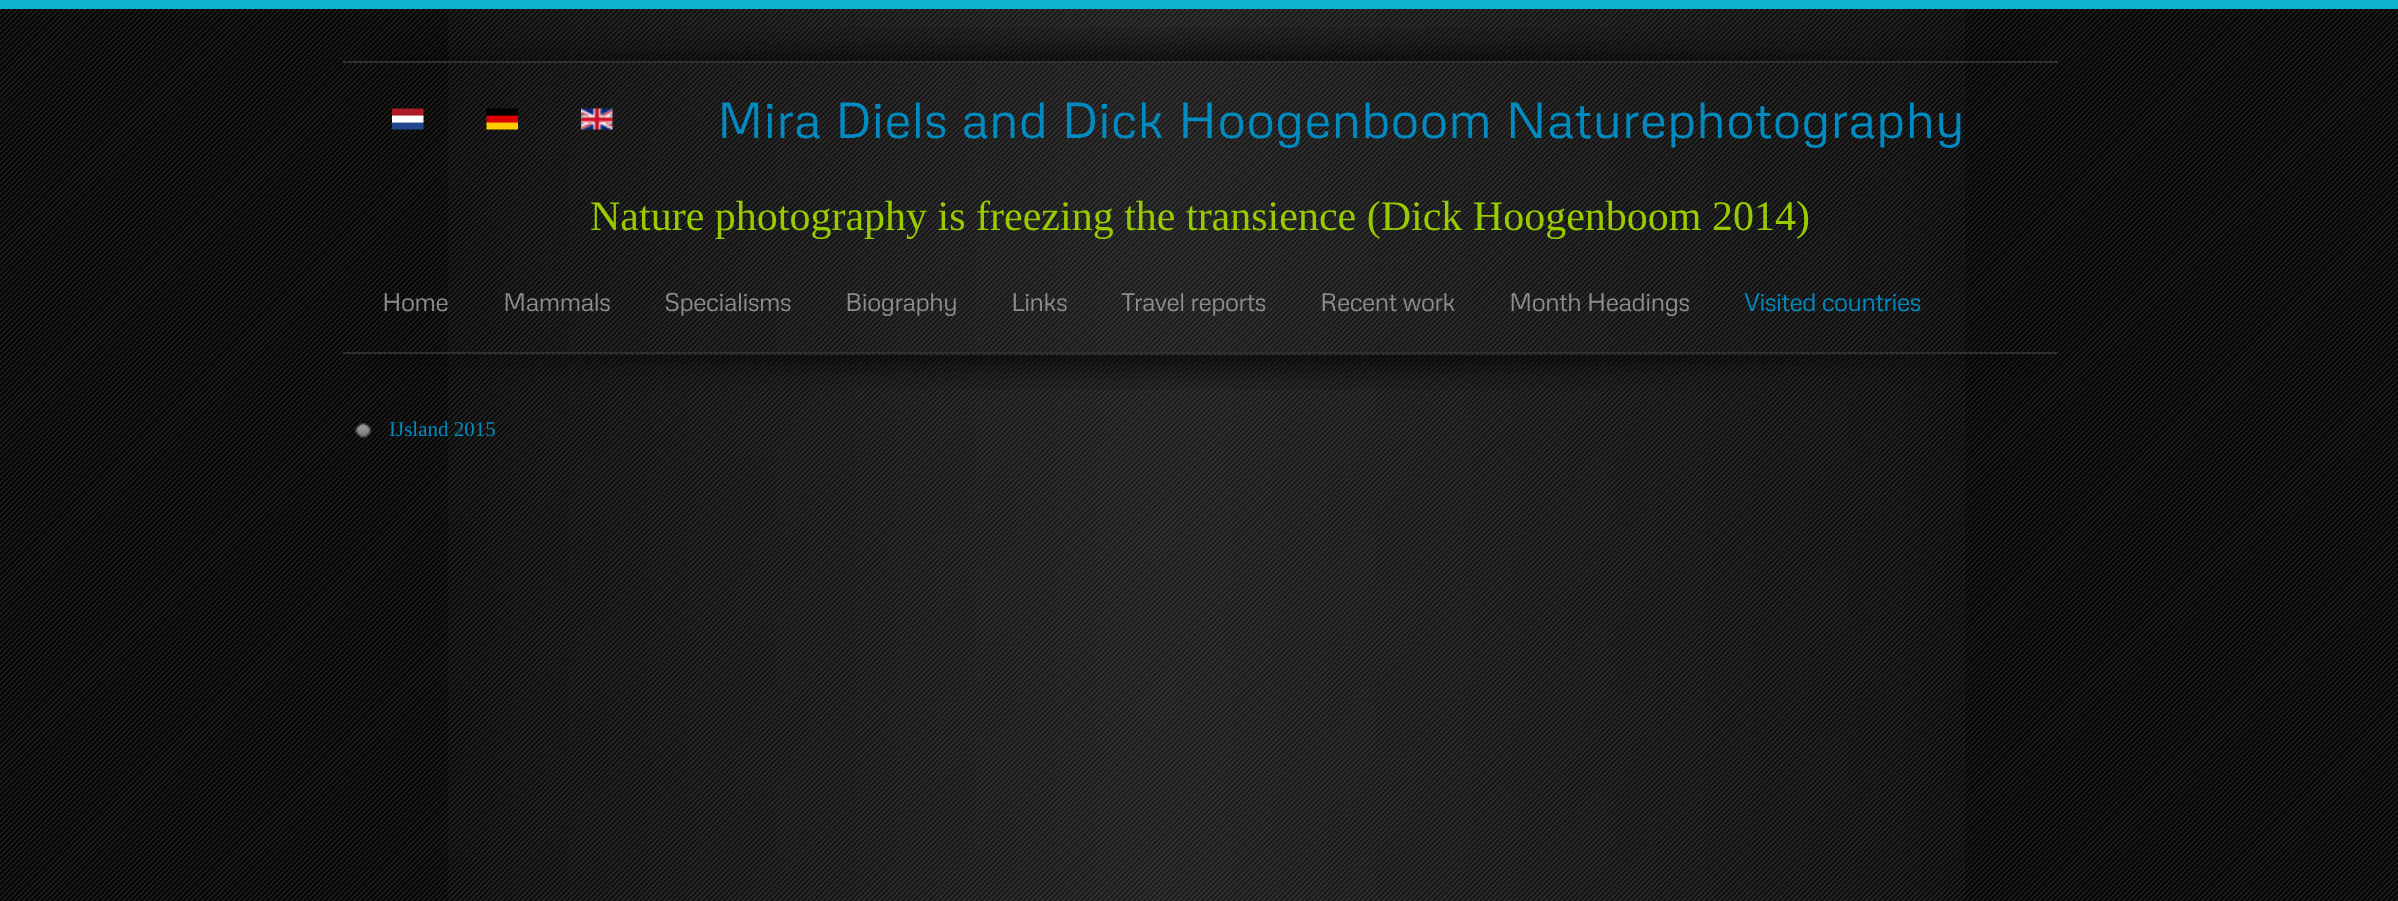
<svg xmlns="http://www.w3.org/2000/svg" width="2398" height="901">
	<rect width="100%" height="100%" fill="#000000" />
	<image x="0" y="9" width="2398" height="892" href="assets/img1.png" />
	<image x="448" y="9" width="1517" height="892" href="assets/img2.png" />
	<rect x="0" y="0" width="2398" height="9" fill="#10B0D0" />
	<image x="361" y="27" width="1679" height="34" href="assets/img3.png" />
	<rect x="343" y="61" width="1715" height="2" fill="#2F2F2F" />
	<image x="368" y="355" width="1670" height="35" href="assets/img4.png" />
	<rect x="343" y="352" width="1715" height="2" fill="#2F2F2F" />
	<image x="392" y="108" width="32" height="22" href="assets/img5.png" />
	<image x="486" y="108" width="32" height="22" href="assets/img6.png" />
	<image x="581" y="108" width="32" height="22" href="assets/img7.png" />
	<text x="717" y="138" font-family="Metrophobic" font-size="50.4" fill="#028BC0">Mira Diels and Dick Hoogenboom Naturephotography</text>
	<text x="590" y="230" font-family="Liberation Serif" font-size="42" fill="#99CC00">Nature photography is freezing the transience (Dick Hoogenboom 2014)</text>
	<g font-family="Metrophobic" font-size="25.25" letter-spacing="-0.9" fill="#8C8C8C">
		<text x="382" y="311">Home</text>
		<text x="503" y="311">Mammals</text>
		<text x="664" y="311">Specialisms</text>
		<text x="845" y="311">Biography</text>
		<text x="1011" y="311">Links</text>
		<text x="1121" y="311">Travel reports</text>
		<text x="1320" y="311">Recent work</text>
		<text x="1509" y="311">Month Headings</text>
	</g>
	<text x="1744" y="311" font-family="Metrophobic" font-size="25.25" letter-spacing="-0.9" fill="#028BC0">Visited countries</text>
	<image x="355" y="423" width="17" height="15" href="assets/img8.png" />
	<text x="389" y="436" font-family="Liberation Serif" font-size="21" fill="#028BC0">IJsland 2015</text>
</svg>
